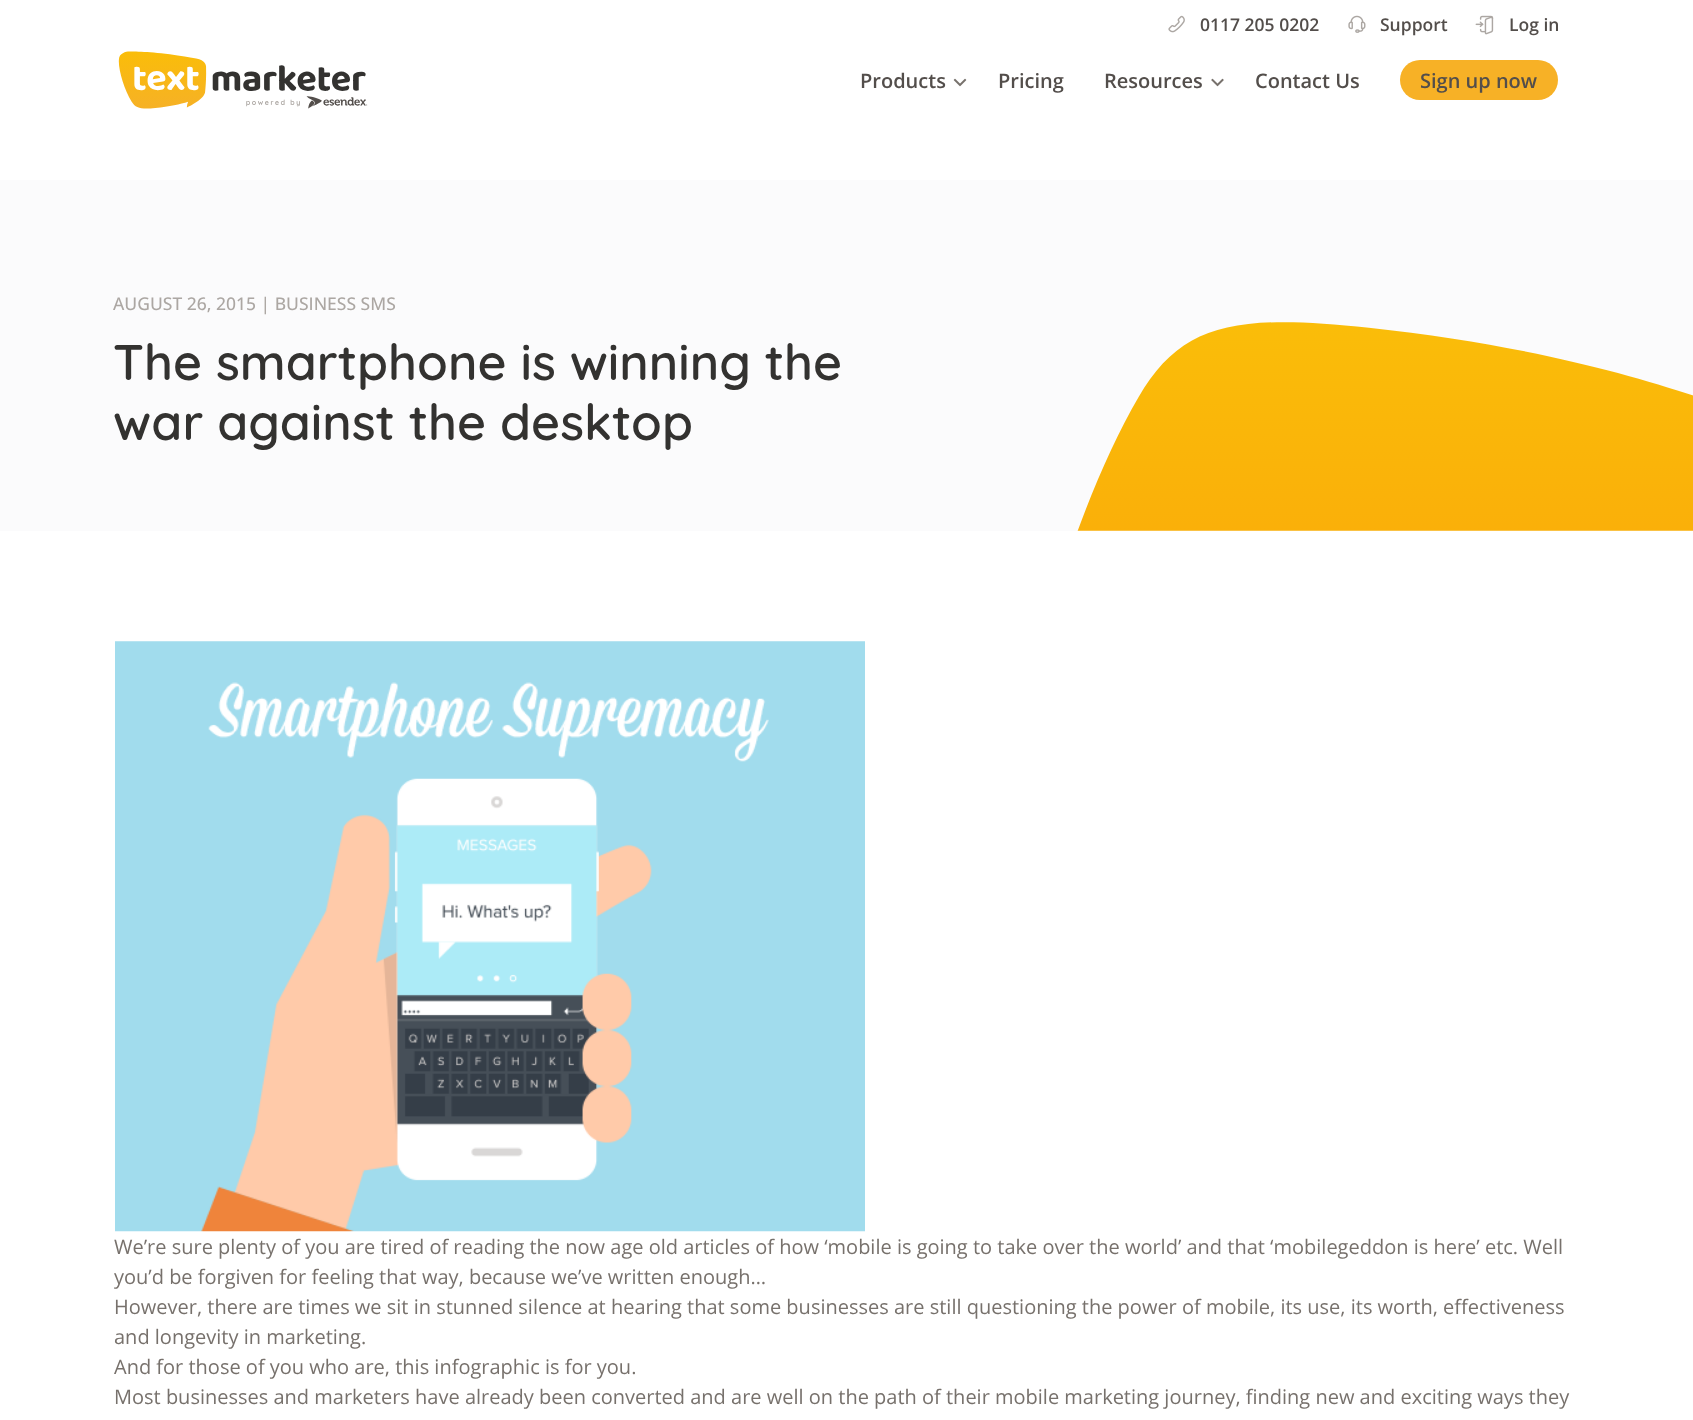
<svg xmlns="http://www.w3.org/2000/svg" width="1693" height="1420">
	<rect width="100%" height="100%" fill="#FFFFFF" />
	<image x="1168" y="15" width="17" height="18" href="assets/img1.png" />
	<text x="1200" y="31" font-family="Open Sans" font-size="17.5" font-weight="600" fill="#534E4B">0117 205 0202</text>
	<image x="1348" y="15" width="18" height="18" href="assets/img2.png" />
	<text x="1380" y="31" font-family="Open Sans" font-size="17.5" font-weight="600" fill="#534E4B">Support</text>
	<image x="1475" y="15" width="19" height="20" href="assets/img3.png" />
	<text x="1509" y="31" font-family="Open Sans" font-size="17.5" font-weight="600" fill="#534E4B">Log in</text>
	<image x="118" y="51" width="250" height="58" href="assets/img4.png" />
	<text x="860" y="88" font-family="Open Sans" font-size="20" font-weight="600" fill="#534E4B">Products</text>
	<image x="953" y="78" width="14" height="9" href="assets/img5.png" />
	<g font-family="Open Sans" font-size="20" font-weight="600" fill="#534E4B">
		<text x="998" y="88">Pricing</text>
		<text x="1104" y="88">Resources</text>
	</g>
	<image x="1211" y="78" width="13" height="9" href="assets/img6.png" />
	<text x="1255" y="88" font-family="Open Sans" font-size="20" font-weight="600" fill="#534E4B">Contact Us</text>
	<rect x="1400" y="60" width="158" height="40" rx="20" fill="#F7B126" />
	<text x="1420" y="88" font-family="Open Sans" font-size="20" font-weight="600" fill="#534E4B">Sign up now</text>
	<rect x="0" y="180" width="1693" height="351" fill="#FBFBFC" />
	<image x="1077" y="322" width="616" height="209" href="assets/img7.png" />
	<text x="113" y="310" font-family="Open Sans" font-size="17.5" font-weight="500" fill="#ACA7A3">AUGUST 26, 2015 | BUSINESS SMS</text>
	<g font-family="Quicksand" font-size="50" font-weight="600" fill="#333230">
		<text x="113" y="380">The smartphone is winning the</text>
		<text x="113" y="440">war against the desktop</text>
	</g>
	<image x="115" y="641" width="750" height="591" href="assets/img8.png" />
	<g font-family="Open Sans" font-size="20" fill="#77716C">
		<text x="114" y="1254">We’re sure plenty of you are tired of reading the now age old articles of how ‘mobile is going to take over the world’ and that ‘mobilegeddon is here’ etc. Well</text>
		<text x="114" y="1284">you’d be forgiven for feeling that way, because we’ve written enough…</text>
		<text x="114" y="1314">However, there are times we sit in stunned silence at hearing that some businesses are still questioning the power of mobile, its use, its worth, effectiveness</text>
		<text x="114" y="1344">and longevity in marketing.</text>
		<text x="114" y="1374">And for those of you who are, this infographic is for you.</text>
		<text x="114" y="1404">Most businesses and marketers have already been converted and are well on the path of their mobile marketing journey, finding new and exciting ways they</text>
	</g>
</svg>
